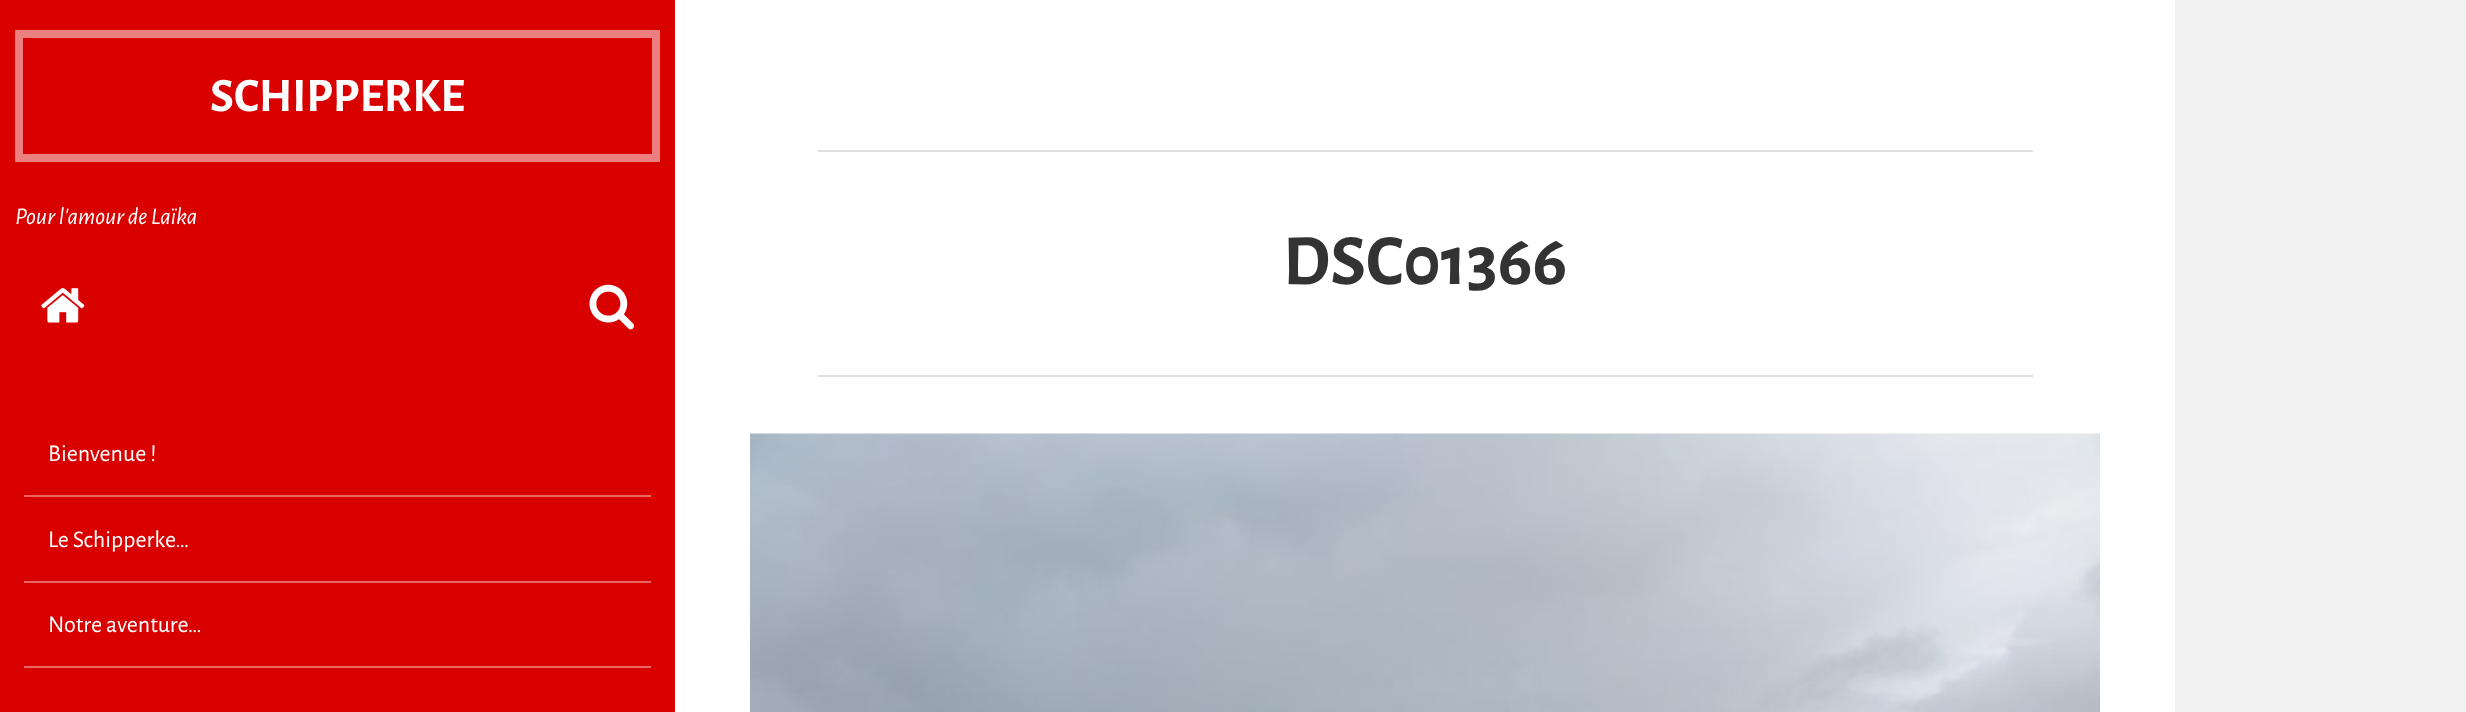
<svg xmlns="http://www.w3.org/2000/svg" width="2466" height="712">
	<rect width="100%" height="100%" fill="#F1F1F1" />
	<rect x="0" y="0" width="675" height="712" fill="#D90000" />
	<rect x="19" y="34" width="637" height="124" fill="none" stroke="#EC8080" stroke-width="8" />
	<text x="210" y="111" font-family="Alegreya Sans" font-size="48" font-weight="700" fill="#FFFFFF">SCHIPPERKE</text>
	<text x="15" y="224" font-family="Alegreya Sans" font-size="24" font-style="italic" fill="#FFFFFF">Pour l'amour de Laïka</text>
	<image x="41" y="288" width="44" height="35" href="assets/img1.png" />
	<image x="589" y="284" width="45" height="46" href="assets/img2.png" />
	<rect x="24" y="495" width="627" height="2" fill="#E86666" />
	<text x="48" y="461" font-family="Alegreya Sans" font-size="24" fill="#FFFFFF">Bienvenue !</text>
	<rect x="24" y="581" width="627" height="2" fill="#E86666" />
	<text x="48" y="547" font-family="Alegreya Sans" font-size="24" fill="#FFFFFF">Le Schipperke…</text>
	<rect x="24" y="666" width="627" height="2" fill="#E86666" />
	<text x="48" y="632" font-family="Alegreya Sans" font-size="24" fill="#FFFFFF">Notre aventure…</text>
	<rect x="675" y="0" width="1500" height="712" fill="#FFFFFF" />
	<rect x="818" y="150" width="1215" height="2" fill="#DFDFDF" />
	<text x="1283" y="284" font-family="Alegreya Sans" font-size="72" font-weight="700" fill="#333333">DSC01366</text>
	<rect x="818" y="375" width="1215" height="2" fill="#DFDFDF" />
	<image x="750" y="433" width="1350" height="279" href="assets/img3.png" />
</svg>
